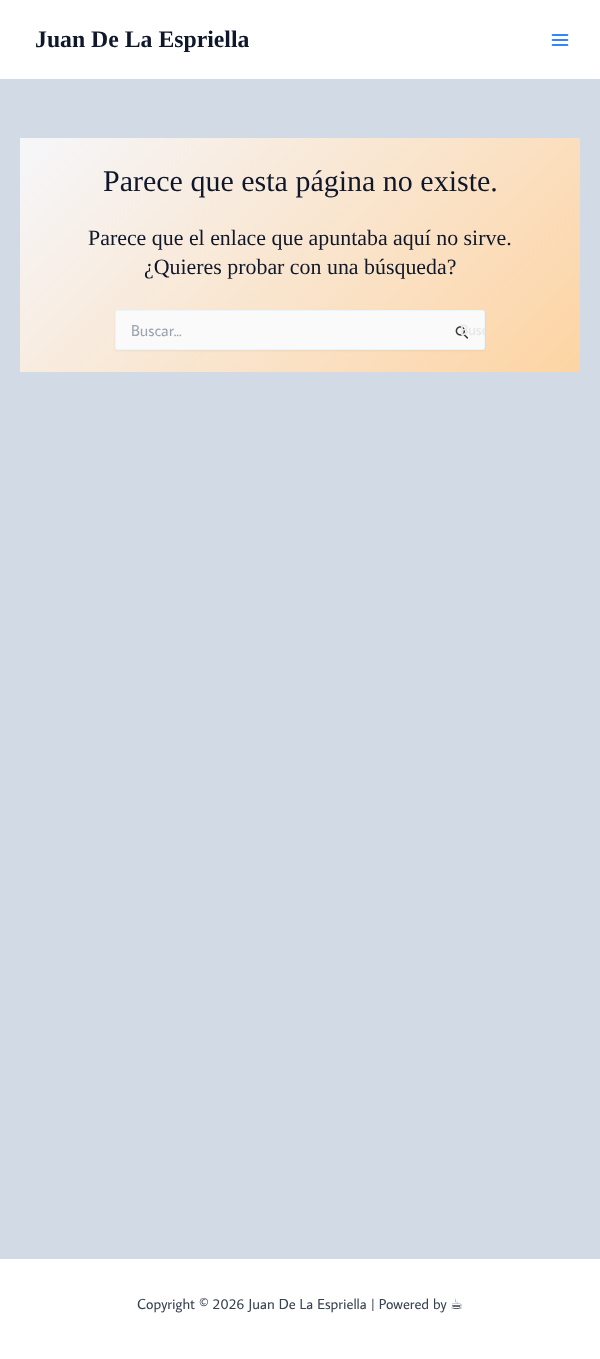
<svg xmlns="http://www.w3.org/2000/svg" width="600" height="1359">
	<defs>
		<linearGradient id="g1" gradientUnits="userSpaceOnUse" x1="102" y1="57" x2="499" y2="454"><stop offset="0.02" stop-color="#F6F6F9" /><stop offset="1" stop-color="#FDD4A3" /></linearGradient>
		<clipPath id="clip1"><rect x="440" y="310" width="45" height="41" rx="2" /></clipPath>
	</defs>
	<rect width="100%" height="100%" fill="#D1DAE5" />
	<rect x="0" y="0" width="600" height="79" fill="#FFFFFF" />
	<text x="35" y="47" font-family="Liberation Serif" font-size="23.75" font-weight="700" fill="#0F172A">Juan De La Espriella</text>
	<image x="551" y="34" width="18" height="12" href="assets/img1.png" />
	<rect x="20" y="138" width="560" height="234" fill="url(#g1)" />
	<text x="103" y="191" font-family="Liberation Serif" font-size="30" fill="#0F172A">Parece que esta página no existe.</text>
	<g font-family="Liberation Serif" font-size="21.9" fill="#0F172A">
		<text x="88" y="245">Parece que el enlace que apuntaba aquí no sirve.</text>
		<text x="144" y="274">¿Quieres probar con una búsqueda?</text>
	</g>
	<rect x="115" y="311" width="370" height="40" rx="2" fill="#000000" fill-opacity="0.05" filter="blur(1px)" />
	<rect x="115.5" y="310.5" width="369" height="39" rx="1.5" fill="#FAFAFA" stroke="#E7F6FF" />
	<text x="131" y="336" font-family="Average Sans" font-size="16" fill="#9CA3AF">Buscar...</text>
	<image x="455" y="326" width="13" height="13" href="assets/img2.png" />
	<g clip-path="url(#clip1)">
		<text x="460" y="335" font-family="Average Sans" font-size="14.6" font-weight="700" fill="#E9E9EA">Busc</text>
	</g>
	<rect x="0" y="1259" width="600" height="100" fill="#FFFFFF" />
	<text x="137" y="1309" font-family="Average Sans" font-size="14.6" fill="#364151">Copyright © 2026 Juan De La Espriella | Powered by</text>
	<text x="450" y="1309" font-family="DejaVu Sans" font-size="14.6" fill="#364151">☕︎</text>
</svg>
